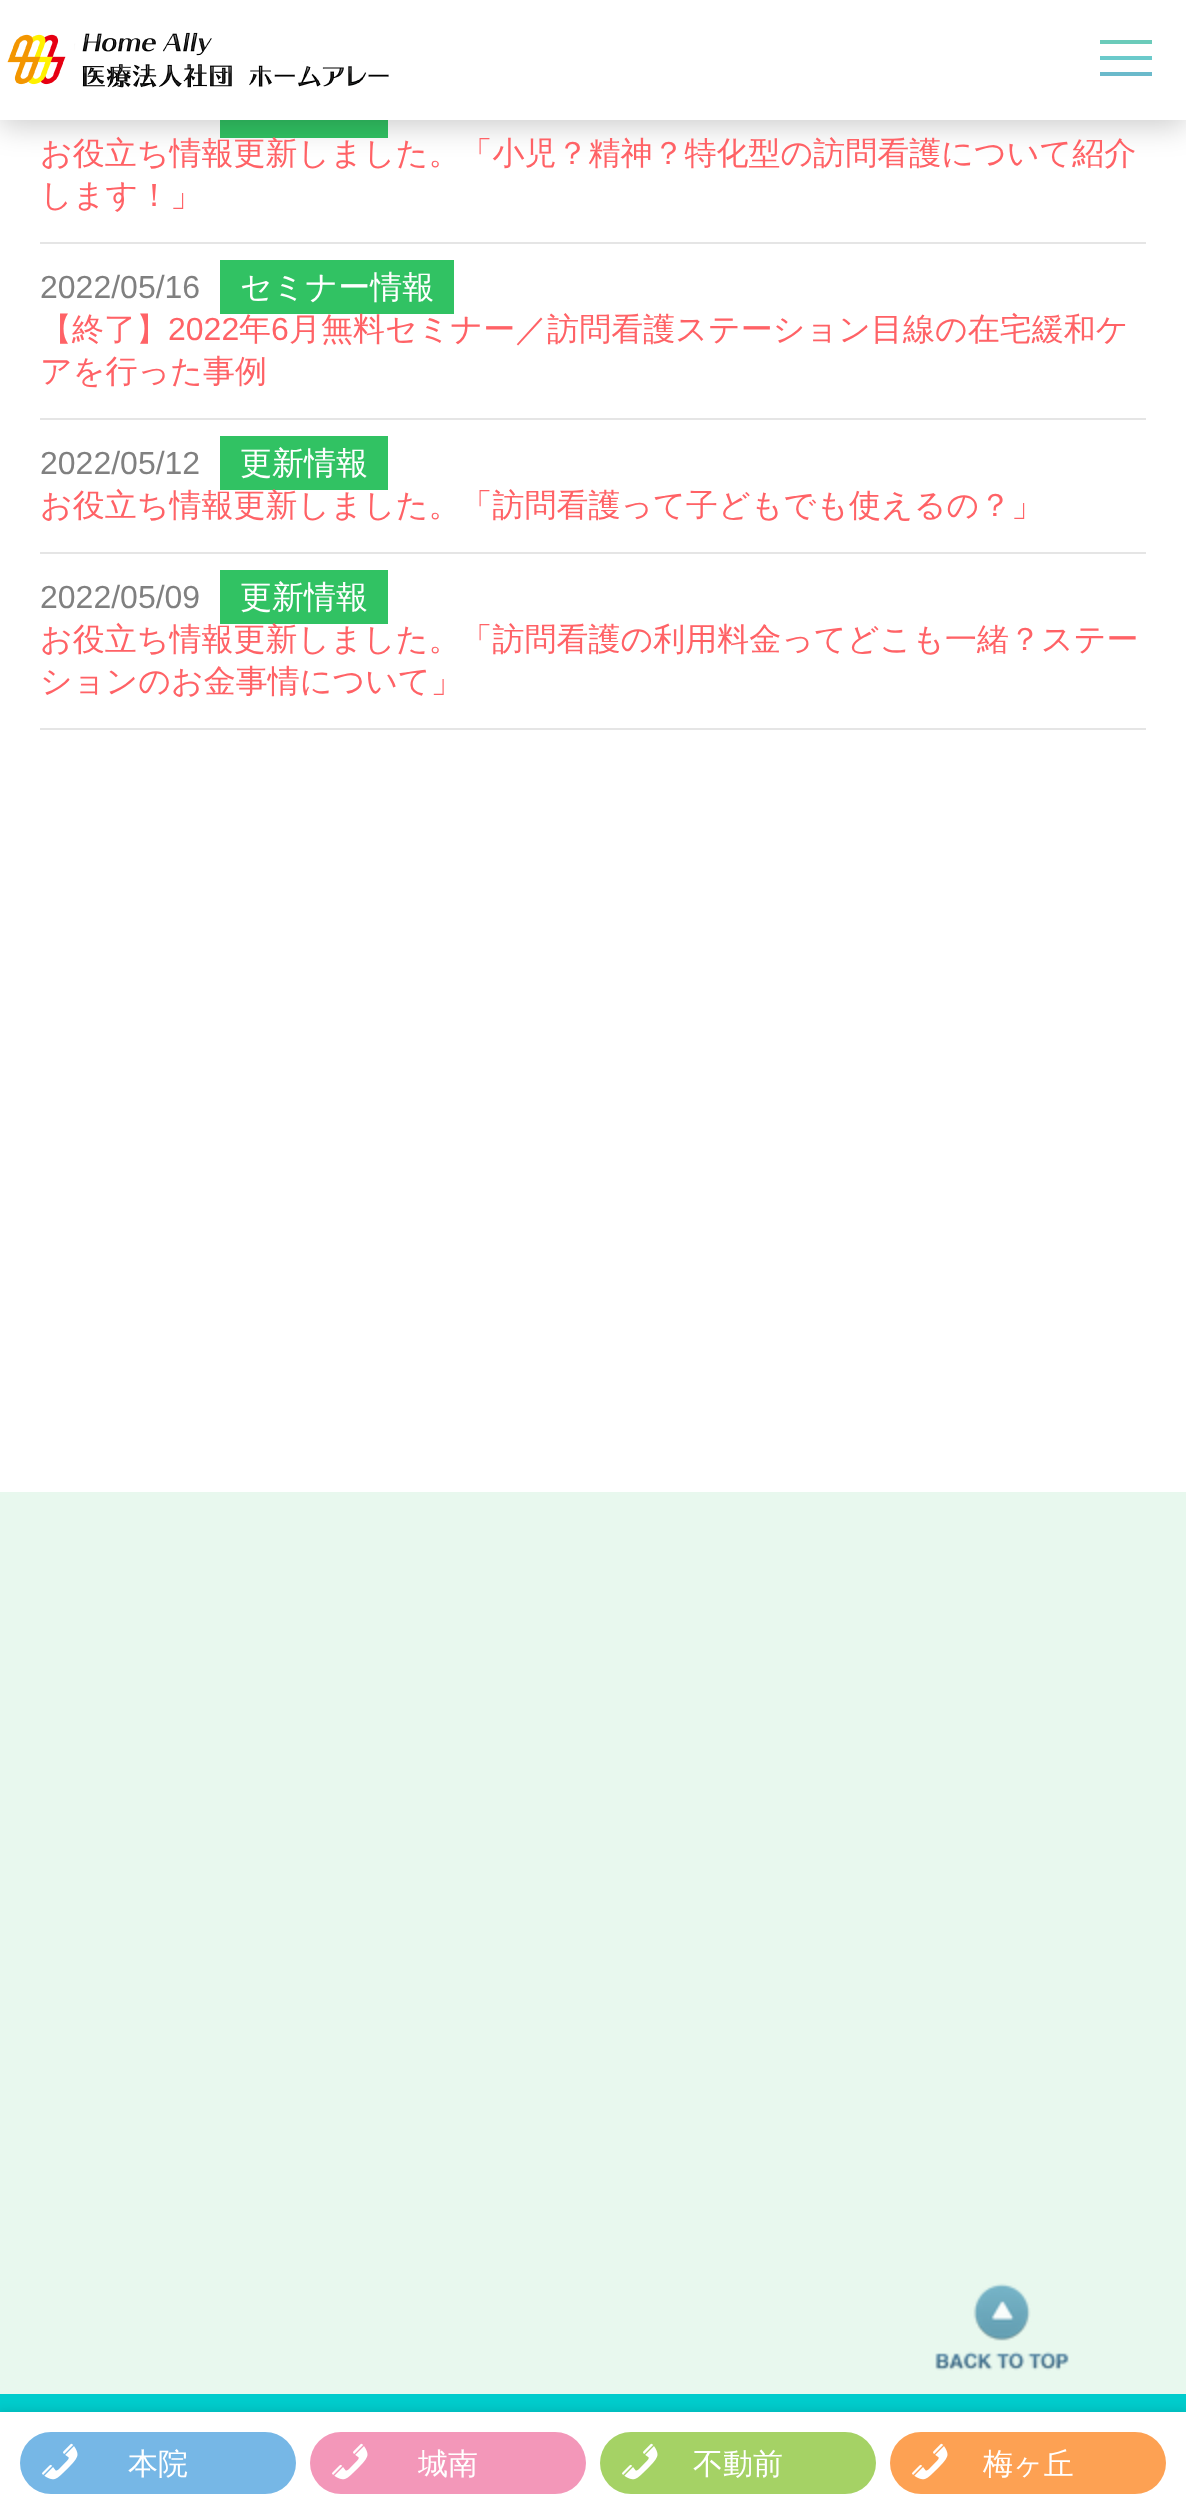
<svg xmlns="http://www.w3.org/2000/svg" width="1186" height="2514">
	<rect width="100%" height="100%" fill="#FFFFFF" />
	<rect x="220" y="120" width="168" height="18" fill="#31C263" />
	<rect x="0" y="6" width="1186" height="120" fill="#000000" fill-opacity="0.2" filter="blur(15px)" />
	<rect x="0" y="0" width="1186" height="120" fill="#FFFFFF" />
	<image x="7" y="32" width="382" height="56" href="assets/img1.png" />
	<rect x="1100" y="40" width="52" height="4" fill="#6BCBBA" />
	<rect x="1100" y="56" width="52" height="4" fill="#6BCACB" />
	<rect x="1100" y="72" width="52" height="4" fill="#6BBACB" />
	<rect x="40" y="242" width="1106" height="2" fill="#E5E5E5" />
	<g font-family="WenQuanYi Zen Hei" font-size="32" font-weight="500" fill="#FF6266">
		<text x="40" y="164">お役立ち情報更新しました。「小児？精神？特化型の訪問看護について紹介</text>
		<text x="40" y="206">します！」</text>
	</g>
	<rect x="40" y="418" width="1106" height="2" fill="#E5E5E5" />
	<text x="40" y="298" font-family="Liberation Sans" font-size="32" fill="#808080">2022/05/16</text>
	<rect x="220" y="260" width="234" height="54" fill="#31C263" />
	<text x="240" y="298" font-family="WenQuanYi Zen Hei" font-size="32" font-weight="500" fill="#FFFFFF">セミナー情報</text>
	<text x="40" y="340" font-family="WenQuanYi Zen Hei" font-size="32" font-weight="500" fill="#FF6266">【終了】</text>
	<text x="168" y="340" font-family="Liberation Sans" font-size="32" fill="#FF6266">2022</text>
	<text x="239" y="340" font-family="WenQuanYi Zen Hei" font-size="32" font-weight="500" fill="#FF6266">年</text>
	<text x="271" y="340" font-family="Liberation Sans" font-size="32" fill="#FF6266">6</text>
	<g font-family="WenQuanYi Zen Hei" font-size="32" font-weight="500" fill="#FF6266">
		<text x="289" y="340">月無料セミナー／訪問看護ステーション目線の在宅緩和ケ</text>
		<text x="40" y="382">アを行った事例</text>
	</g>
	<rect x="40" y="552" width="1106" height="2" fill="#E5E5E5" />
	<text x="40" y="474" font-family="Liberation Sans" font-size="32" fill="#808080">2022/05/12</text>
	<rect x="220" y="436" width="168" height="54" fill="#31C263" />
	<text x="240" y="474" font-family="WenQuanYi Zen Hei" font-size="32" font-weight="500" fill="#FFFFFF">更新情報</text>
	<text x="40" y="516" font-family="WenQuanYi Zen Hei" font-size="32" font-weight="500" fill="#FF6266">お役立ち情報更新しました。「訪問看護って子どもでも使えるの？」</text>
	<rect x="40" y="728" width="1106" height="2" fill="#E5E5E5" />
	<text x="40" y="608" font-family="Liberation Sans" font-size="32" fill="#808080">2022/05/09</text>
	<rect x="220" y="570" width="168" height="54" fill="#31C263" />
	<text x="240" y="608" font-family="WenQuanYi Zen Hei" font-size="32" font-weight="500" fill="#FFFFFF">更新情報</text>
	<g font-family="WenQuanYi Zen Hei" font-size="32" font-weight="500" fill="#FF6266">
		<text x="40" y="650">お役立ち情報更新しました。「訪問看護の利用料金ってどこも一緒？ステー</text>
		<text x="40" y="692">ションのお金事情について」</text>
	</g>
	<rect x="0" y="1492" width="1186" height="902" fill="#E8F8EE" />
	<image x="935" y="2283" width="134" height="88" href="assets/img2.png" />
	<rect x="0" y="2394" width="1186" height="18" fill="#00CCCC" />
	<rect x="-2" y="2410" width="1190" height="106" fill="#000000" fill-opacity="0.1" filter="blur(5px)" />
	<rect x="0" y="2412" width="1186" height="102" fill="#FFFFFF" />
	<rect x="20" y="2432" width="276" height="62" rx="31" fill="#76B7E6" />
	<image x="42" y="2443" width="36" height="37" href="assets/img3.png" />
	<text x="128" y="2474" font-family="WenQuanYi Zen Hei" font-size="30" font-weight="500" fill="#FFFFFF">本院</text>
	<rect x="310" y="2432" width="276" height="62" rx="31" fill="#F397B9" />
	<image x="332" y="2443" width="36" height="37" href="assets/img4.png" />
	<text x="418" y="2474" font-family="WenQuanYi Zen Hei" font-size="30" font-weight="500" fill="#FFFFFF">城南</text>
	<rect x="600" y="2432" width="276" height="62" rx="31" fill="#A5D265" />
	<image x="622" y="2443" width="36" height="37" href="assets/img5.png" />
	<text x="693" y="2474" font-family="WenQuanYi Zen Hei" font-size="30" font-weight="500" fill="#FFFFFF">不動前</text>
	<rect x="890" y="2432" width="276" height="62" rx="31" fill="#FDA153" />
	<image x="912" y="2443" width="36" height="37" href="assets/img6.png" />
	<text x="983" y="2474" font-family="WenQuanYi Zen Hei" font-size="30" font-weight="500" fill="#FFFFFF">梅ヶ丘</text>
</svg>
